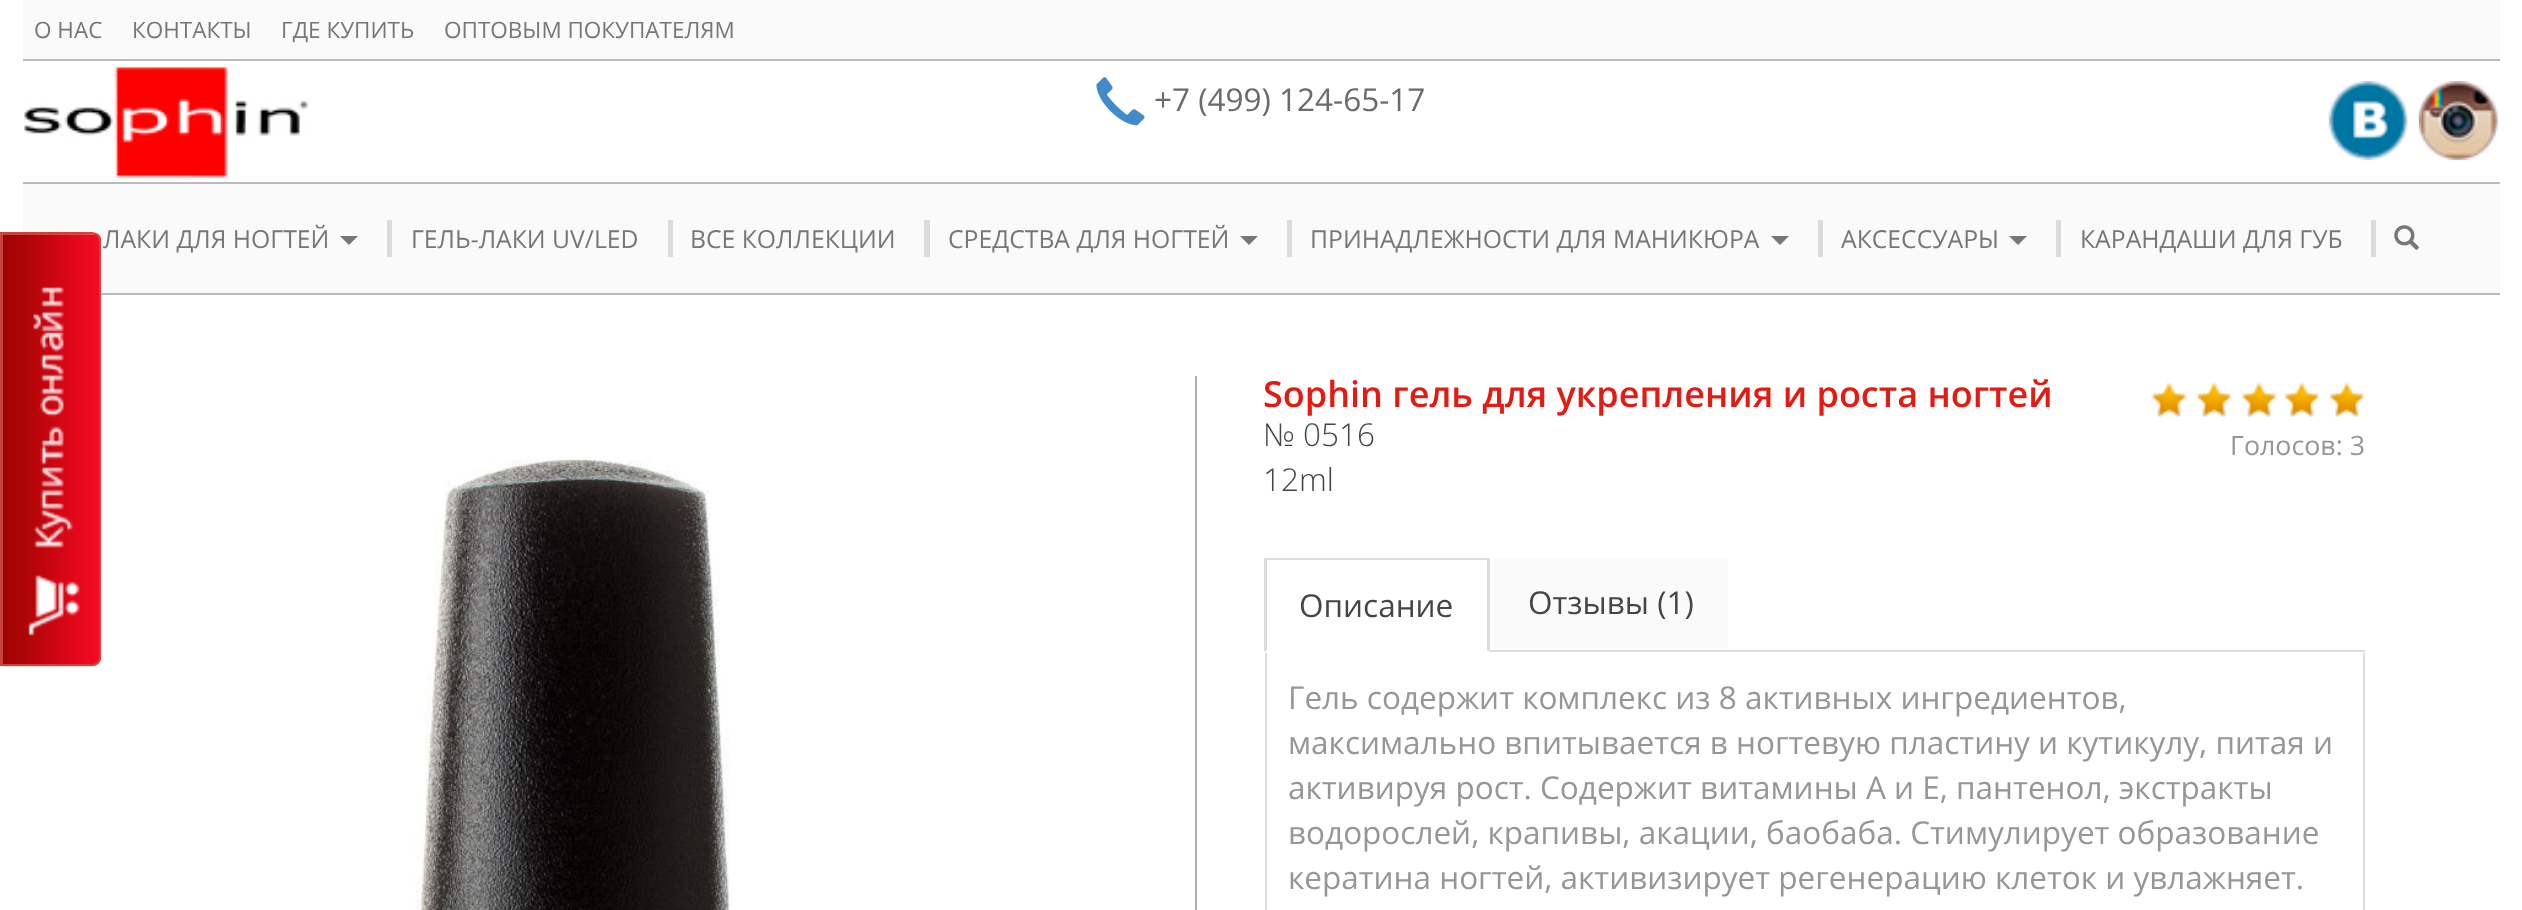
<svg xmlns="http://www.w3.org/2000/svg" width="2522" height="910">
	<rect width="100%" height="100%" fill="#FFFFFF" />
	<rect x="23" y="0" width="2477" height="59" fill="#FAFAFA" />
	<rect x="23" y="59" width="2477" height="2" fill="#BBBBBB" />
	<g font-family="Open Sans" font-size="22.5" fill="#777777">
		<text x="34" y="38">О НАС</text>
		<text x="132" y="38">КОНТАКТЫ</text>
		<text x="281" y="38">ГДЕ КУПИТЬ</text>
		<text x="444" y="38">ОПТОВЫМ ПОКУПАТЕЛЯМ</text>
	</g>
	<image x="24" y="65" width="285" height="113" href="assets/img1.png" />
	<image x="1096" y="77" width="49" height="49" href="assets/img2.png" />
	<text x="1154" y="111" font-family="Open Sans" font-size="31.5" fill="#6A6A6A">+7 (499) 124-65-17</text>
	<image x="2328" y="81" width="81" height="79" href="assets/img3.png" />
	<image x="2418" y="81" width="81" height="79" href="assets/img4.png" />
	<rect x="23" y="184" width="2477" height="109" fill="#FAFAFA" />
	<rect x="23" y="182" width="2477" height="2" fill="#BBBBBB" />
	<rect x="101" y="293" width="2399" height="2" fill="#BBBBBB" />
	<text x="103" y="248" font-family="Open Sans" font-size="24.75" fill="#777777">ЛАКИ ДЛЯ НОГТЕЙ</text>
	<path d="M340 236H358L349 245Z" fill="#777777" />
	<rect x="387" y="220" width="5" height="37" fill="#DCDCDC" />
	<text x="411" y="248" font-family="Open Sans" font-size="24.75" fill="#777777">ГЕЛЬ-ЛАКИ UV/LED</text>
	<rect x="668" y="220" width="5" height="37" fill="#DCDCDC" />
	<text x="690" y="248" font-family="Open Sans" font-size="24.75" fill="#777777">ВСЕ КОЛЛЕКЦИИ</text>
	<rect x="924" y="220" width="6" height="37" fill="#DCDCDC" />
	<text x="948" y="248" font-family="Open Sans" font-size="24.75" fill="#777777">СРЕДСТВА ДЛЯ НОГТЕЙ</text>
	<path d="M1240 236H1258L1249 245Z" fill="#777777" />
	<rect x="1287" y="220" width="5" height="37" fill="#DCDCDC" />
	<text x="1310" y="248" font-family="Open Sans" font-size="24.75" fill="#777777">ПРИНАДЛЕЖНОСТИ ДЛЯ МАНИКЮРА</text>
	<path d="M1771 236H1789L1780 245Z" fill="#777777" />
	<rect x="1818" y="220" width="5" height="37" fill="#DCDCDC" />
	<text x="1841" y="248" font-family="Open Sans" font-size="24.75" fill="#777777">АКСЕССУАРЫ</text>
	<path d="M2009 236H2027L2018 245Z" fill="#777777" />
	<rect x="2056" y="220" width="5" height="37" fill="#DCDCDC" />
	<text x="2080" y="248" font-family="Open Sans" font-size="24.75" fill="#777777">КАРАНДАШИ ДЛЯ ГУБ</text>
	<rect x="2371" y="220" width="5" height="37" fill="#DCDCDC" />
	<image x="2394" y="225" width="25" height="25" href="assets/img5.png" />
	<image x="415" y="459" width="315" height="451" href="assets/img6.png" />
	<rect x="1195" y="376" width="2" height="534" fill="#AFAFAF" />
	<text x="1263" y="407" font-family="Open Sans" font-size="36" font-weight="600" fill="#E41B13">Sophin гель для укрепления и роста ногтей</text>
	<text x="1263" y="446" font-family="Open Sans" font-size="31.5" font-weight="300" fill="#454545">№ 0516</text>
	<image x="2151" y="382" width="36" height="35" href="assets/img7.png" />
	<image x="2196" y="382" width="36" height="35" href="assets/img7.png" />
	<image x="2241" y="382" width="36" height="35" href="assets/img7.png" />
	<image x="2284" y="382" width="36" height="35" href="assets/img8.png" />
	<image x="2329" y="382" width="36" height="35" href="assets/img8.png" />
	<text x="2230" y="455" font-family="Open Sans" font-size="26.75" fill="#969696">Голосов: 3</text>
	<text x="1263" y="491" font-family="Open Sans" font-size="31.5" font-weight="300" fill="#454545">12ml</text>
	<rect x="1490" y="650" width="875" height="2" fill="#DDDDDD" />
	<rect x="1265" y="558" width="225" height="2" fill="#DDDDDD" />
	<path d="M1490 558V652L1487 650V560Z" fill="#DDDDDD" />
	<path d="M1264 652V558L1267 560V650Z" fill="#DDDDDD" />
	<text x="1299" y="617" font-family="Open Sans" font-size="31.5" fill="#454545">Описание</text>
	<rect x="1494" y="558" width="234" height="90" fill="#FAFAFA" />
	<text x="1528" y="614" font-family="Open Sans" font-size="31.5" fill="#454545">Отзывы (1)</text>
	<rect x="2363" y="653" width="2" height="257" fill="#DDDDDD" />
	<rect x="1265" y="653" width="2" height="257" fill="#DDDDDD" />
	<g font-family="Open Sans" font-size="31.5" fill="#969696">
		<text x="1288" y="709">Гель содержит комплекс из 8 активных ингредиентов,</text>
		<text x="1288" y="754">максимально впитывается в ногтевую пластину и кутикулу, питая и</text>
		<text x="1288" y="799">активируя рост. Содержит витамины А и Е, пантенол, экстракты</text>
		<text x="1288" y="844">водорослей, крапивы, акации, баобаба. Стимулирует образование</text>
		<text x="1288" y="889">кератина ногтей, активизирует регенерацию клеток и увлажняет.</text>
	</g>
	<image x="2" y="233" width="100" height="434" href="assets/img9.png" />
	<path d="M1 233H92C96.5 233 100 236.5 100 241V657C100 661.5 96.5 665 92 665H1Z" fill="none" stroke="#D43F3A" stroke-width="2" />
</svg>
